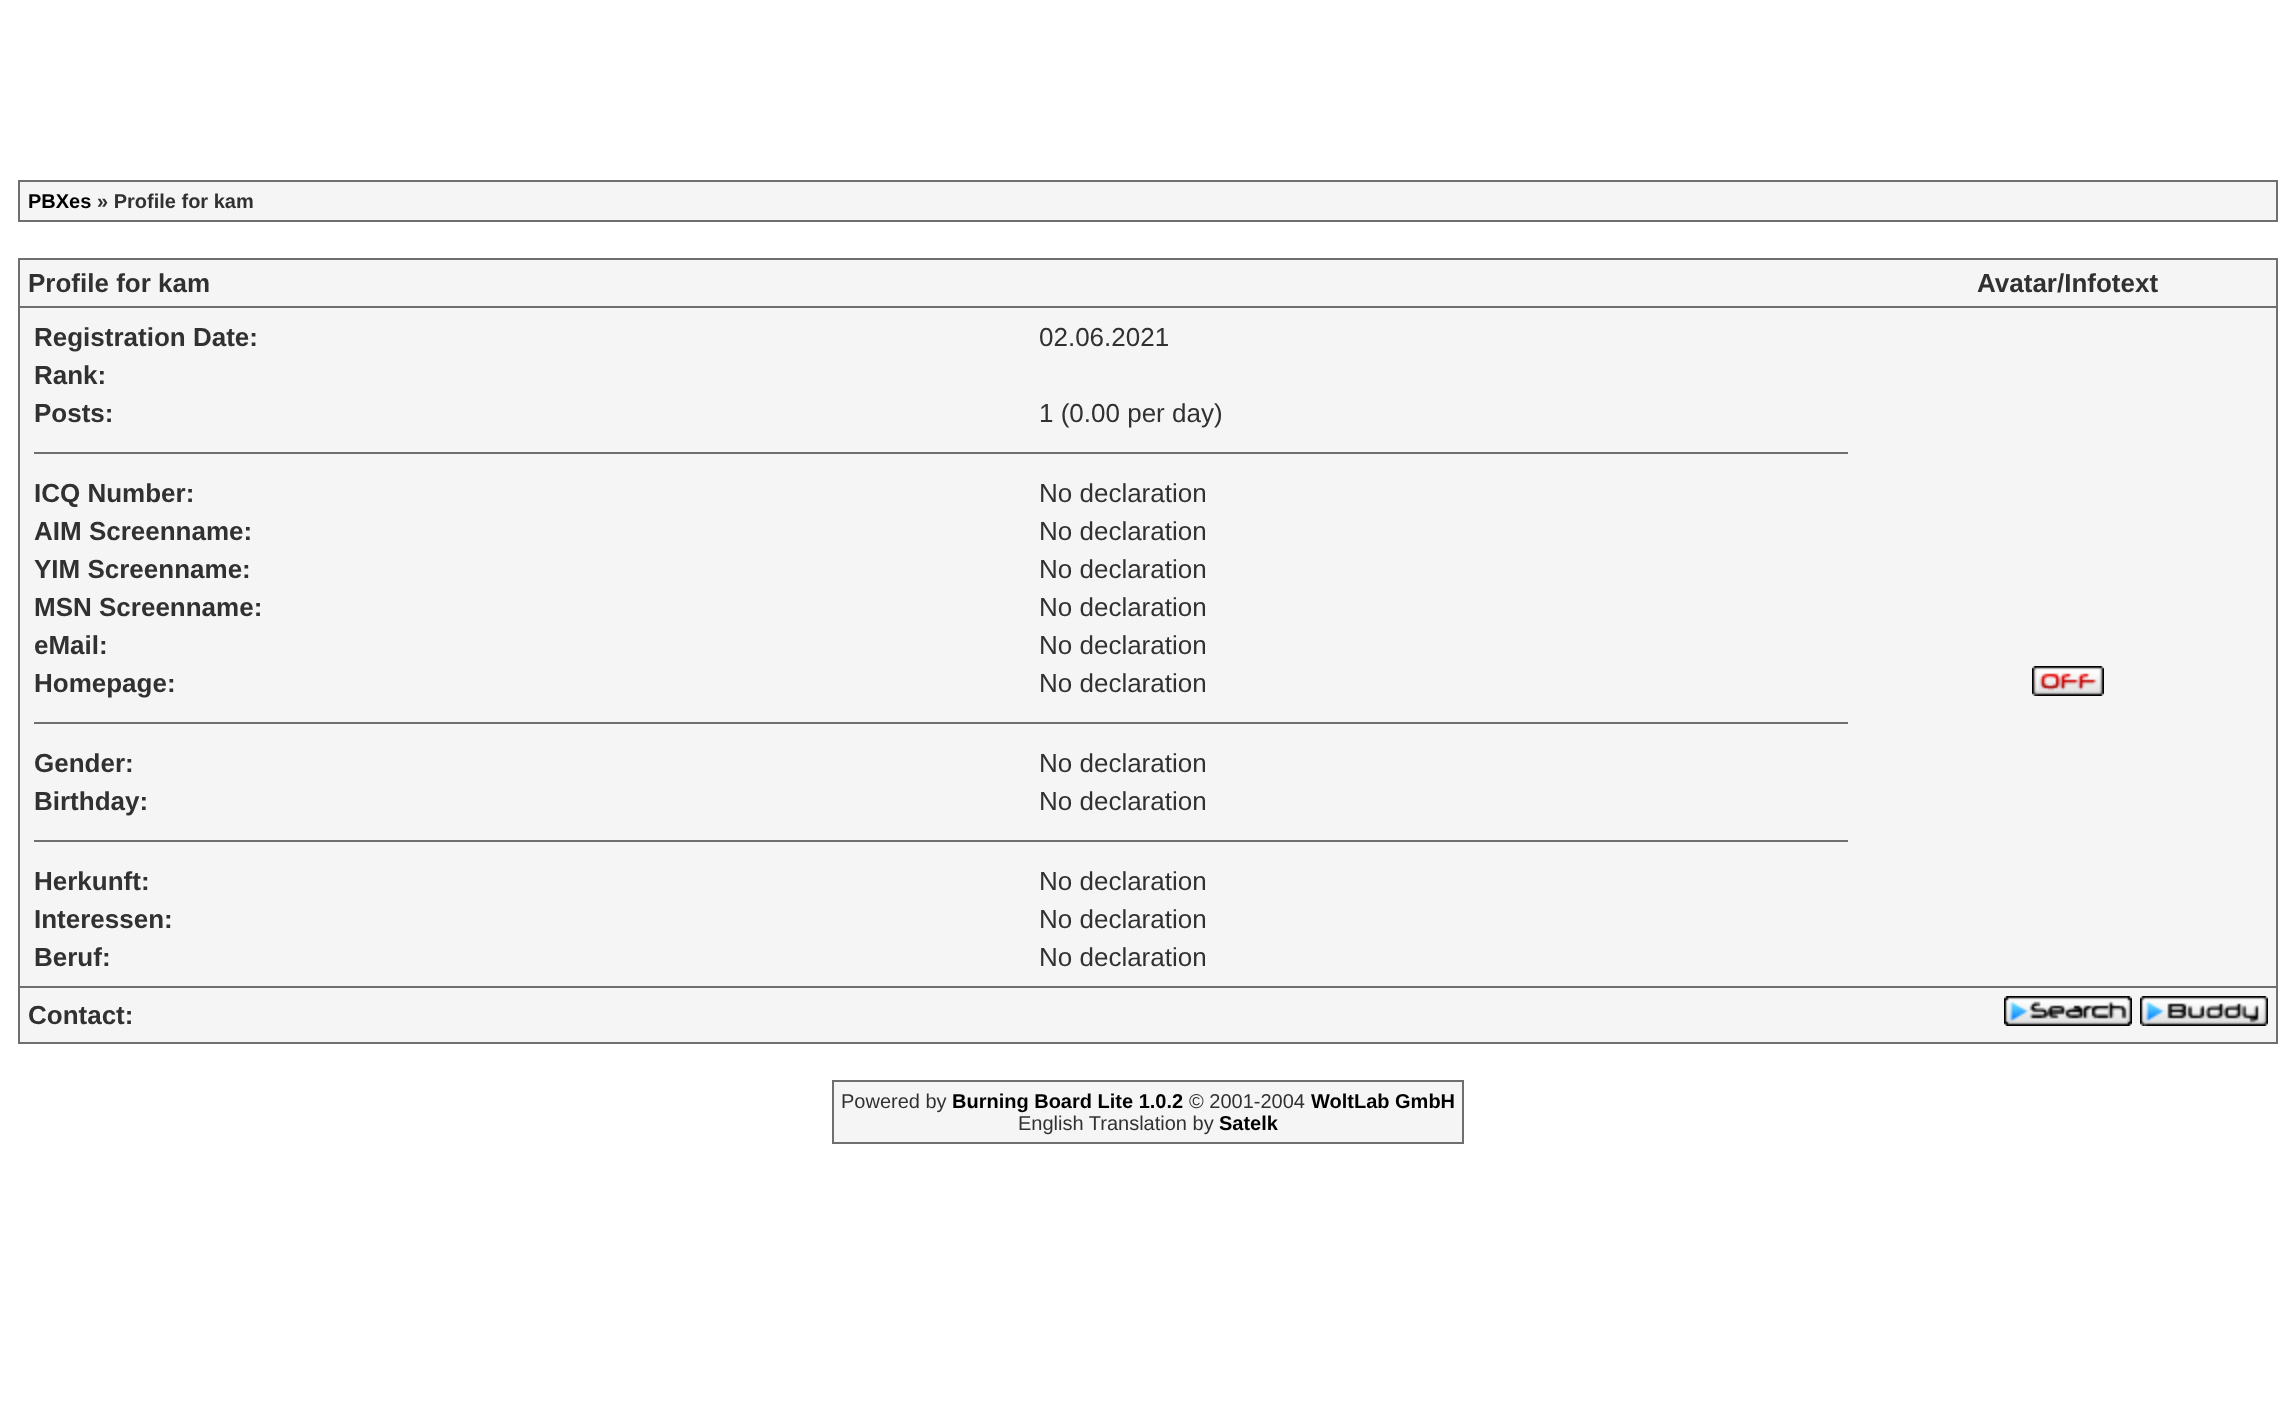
<svg xmlns="http://www.w3.org/2000/svg" width="2296" height="1421">
	<rect width="100%" height="100%" fill="#FFFFFF" />
	<rect x="18" y="180" width="2260" height="42" fill="#6F6F6F" />
	<rect x="20" y="182" width="2256" height="38" fill="#F5F5F5" />
	<text x="28" y="208" font-family="Liberation Sans" font-size="20" font-weight="700" fill="#000000">PBXes</text>
	<text x="97" y="208" font-family="Liberation Sans" font-size="20" font-weight="700" fill="#313131">» Profile for kam</text>
	<rect x="18" y="258" width="2260" height="786" fill="#6F6F6F" />
	<rect x="20" y="260" width="2256" height="46" fill="#F5F5F5" />
	<g font-family="Liberation Sans" font-size="26" font-weight="700" fill="#313131">
		<text x="28" y="292">Profile for kam</text>
		<text x="1977" y="292">Avatar/Infotext</text>
	</g>
	<rect x="20" y="308" width="2256" height="678" fill="#F5F5F5" />
	<text x="34" y="346" font-family="Liberation Sans" font-size="26" font-weight="700" fill="#313131">Registration Date:</text>
	<text x="1039" y="346" font-family="Liberation Sans" font-size="26" fill="#313131">02.06.2021</text>
	<g font-family="Liberation Sans" font-size="26" font-weight="700" fill="#313131">
		<text x="34" y="384">Rank:</text>
		<text x="34" y="422">Posts:</text>
	</g>
	<text x="1039" y="422" font-family="Liberation Sans" font-size="26" fill="#313131">1 (0.00 per day)</text>
	<rect x="34" y="452" width="1814" height="2" fill="#6F6F6F" />
	<text x="34" y="502" font-family="Liberation Sans" font-size="26" font-weight="700" fill="#313131">ICQ Number:</text>
	<text x="1039" y="502" font-family="Liberation Sans" font-size="26" fill="#313131">No declaration</text>
	<text x="34" y="540" font-family="Liberation Sans" font-size="26" font-weight="700" fill="#313131">AIM Screenname:</text>
	<text x="1039" y="540" font-family="Liberation Sans" font-size="26" fill="#313131">No declaration</text>
	<text x="34" y="578" font-family="Liberation Sans" font-size="26" font-weight="700" fill="#313131">YIM Screenname:</text>
	<text x="1039" y="578" font-family="Liberation Sans" font-size="26" fill="#313131">No declaration</text>
	<text x="34" y="616" font-family="Liberation Sans" font-size="26" font-weight="700" fill="#313131">MSN Screenname:</text>
	<text x="1039" y="616" font-family="Liberation Sans" font-size="26" fill="#313131">No declaration</text>
	<text x="34" y="654" font-family="Liberation Sans" font-size="26" font-weight="700" fill="#313131">eMail:</text>
	<text x="1039" y="654" font-family="Liberation Sans" font-size="26" fill="#313131">No declaration</text>
	<text x="34" y="692" font-family="Liberation Sans" font-size="26" font-weight="700" fill="#313131">Homepage:</text>
	<text x="1039" y="692" font-family="Liberation Sans" font-size="26" fill="#313131">No declaration</text>
	<rect x="34" y="722" width="1814" height="2" fill="#6F6F6F" />
	<text x="34" y="772" font-family="Liberation Sans" font-size="26" font-weight="700" fill="#313131">Gender:</text>
	<text x="1039" y="772" font-family="Liberation Sans" font-size="26" fill="#313131">No declaration</text>
	<text x="34" y="810" font-family="Liberation Sans" font-size="26" font-weight="700" fill="#313131">Birthday:</text>
	<text x="1039" y="810" font-family="Liberation Sans" font-size="26" fill="#313131">No declaration</text>
	<rect x="34" y="840" width="1814" height="2" fill="#6F6F6F" />
	<text x="34" y="890" font-family="Liberation Sans" font-size="26" font-weight="700" fill="#313131">Herkunft:</text>
	<text x="1039" y="890" font-family="Liberation Sans" font-size="26" fill="#313131">No declaration</text>
	<text x="34" y="928" font-family="Liberation Sans" font-size="26" font-weight="700" fill="#313131">Interessen:</text>
	<text x="1039" y="928" font-family="Liberation Sans" font-size="26" fill="#313131">No declaration</text>
	<text x="34" y="966" font-family="Liberation Sans" font-size="26" font-weight="700" fill="#313131">Beruf:</text>
	<text x="1039" y="966" font-family="Liberation Sans" font-size="26" fill="#313131">No declaration</text>
	<image x="2032" y="666" width="72" height="30" href="assets/img1.png" />
	<rect x="20" y="988" width="2256" height="54" fill="#F5F5F5" />
	<text x="28" y="1024" font-family="Liberation Sans" font-size="26" font-weight="700" fill="#313131">Contact:</text>
	<image x="2004" y="996" width="128" height="30" href="assets/img2.png" />
	<image x="2140" y="996" width="128" height="30" href="assets/img3.png" />
	<rect x="832" y="1080" width="632" height="64" fill="#6F6F6F" />
	<rect x="834" y="1082" width="628" height="60" fill="#F5F5F5" />
	<text x="841" y="1108" font-family="Liberation Sans" font-size="20" fill="#313131">Powered by</text>
	<text x="952" y="1108" font-family="Liberation Sans" font-size="20" font-weight="700" fill="#000000">Burning Board Lite 1.0.2</text>
	<text x="1189" y="1108" font-family="Liberation Sans" font-size="20" fill="#313131">© 2001-2004</text>
	<text x="1311" y="1108" font-family="Liberation Sans" font-size="20" font-weight="700" fill="#000000">WoltLab GmbH</text>
	<text x="1018" y="1130" font-family="Liberation Sans" font-size="20" fill="#313131">English Translation by</text>
	<text x="1219" y="1130" font-family="Liberation Sans" font-size="20" font-weight="700" fill="#000000">Satelk</text>
</svg>
